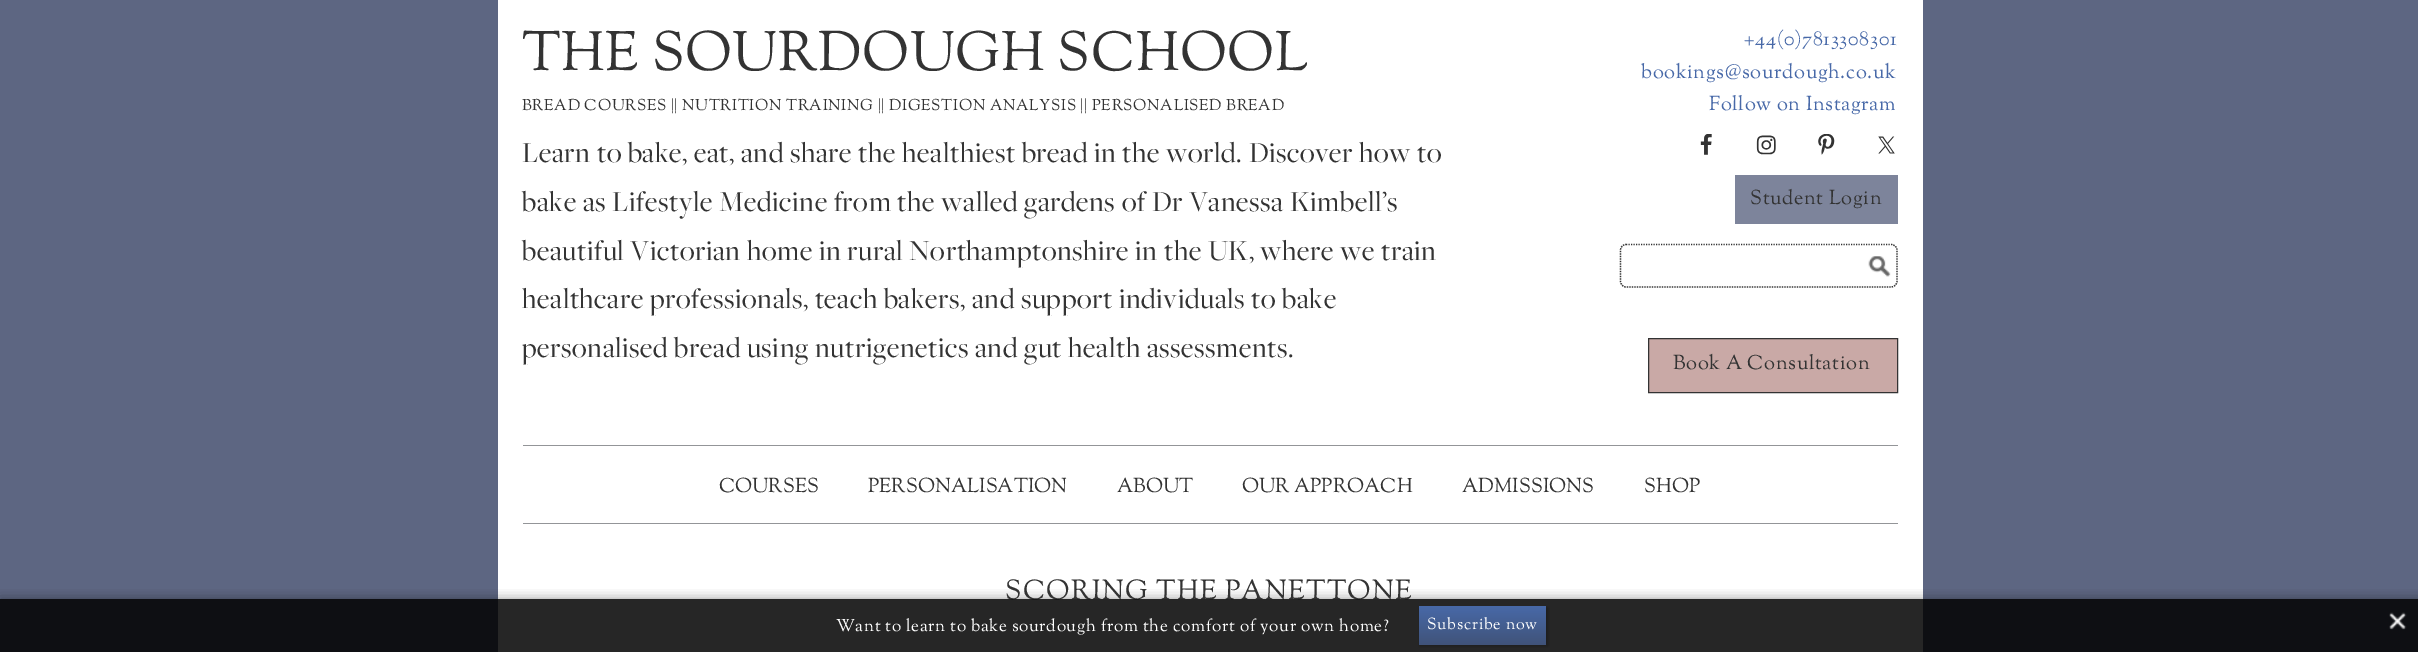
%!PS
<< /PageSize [2418 652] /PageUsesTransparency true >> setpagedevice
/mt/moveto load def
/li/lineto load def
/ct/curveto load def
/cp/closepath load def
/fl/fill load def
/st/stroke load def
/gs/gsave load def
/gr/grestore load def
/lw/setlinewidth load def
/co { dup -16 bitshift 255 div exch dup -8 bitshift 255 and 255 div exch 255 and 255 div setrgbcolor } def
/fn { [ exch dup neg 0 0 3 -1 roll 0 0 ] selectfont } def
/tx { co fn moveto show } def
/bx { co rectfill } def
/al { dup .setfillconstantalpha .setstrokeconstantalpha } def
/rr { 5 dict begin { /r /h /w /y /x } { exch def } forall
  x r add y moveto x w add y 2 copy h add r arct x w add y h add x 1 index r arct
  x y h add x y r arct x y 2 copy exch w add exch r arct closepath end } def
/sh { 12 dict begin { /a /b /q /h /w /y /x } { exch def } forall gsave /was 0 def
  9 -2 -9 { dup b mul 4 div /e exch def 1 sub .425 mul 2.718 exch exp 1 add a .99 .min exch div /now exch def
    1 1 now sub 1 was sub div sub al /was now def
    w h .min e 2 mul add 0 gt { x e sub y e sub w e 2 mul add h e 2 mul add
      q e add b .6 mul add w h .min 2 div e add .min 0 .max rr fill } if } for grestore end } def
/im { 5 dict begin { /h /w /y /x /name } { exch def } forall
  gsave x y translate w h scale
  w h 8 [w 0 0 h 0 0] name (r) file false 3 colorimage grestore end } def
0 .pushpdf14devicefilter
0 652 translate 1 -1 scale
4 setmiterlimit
0 0 2418 652 16#5D6682 bx
498 0 1425 652 16#FFFFFF bx
(media/1.raw) 1700 134 12 21 im
(media/2.raw) 1756 135 20 20 im
(media/3.raw) 1818 134 17 21 im
(media/4.raw) 1878 136 17 18 im
1735 175 163 49 16#7D849B bx
(media/5.raw) 1868 256 23 21 im
16#333333 co
1.2 lw
[1.25 1.25] 0 setdash
1626 244.5 mt 1891 244.5 li 1894.5 244.5 1897 247 1897 250 ct 1897 281 li 1897 284.5 1894.5 287 1891 287 ct 1626 287 li 1623 287 1620.5 284.5 1620.5 281 ct 1620.5 250 li 1620.5 247 1623 244.5 1626 244.5 ct cp st
16#C9A9A6 co
1648.5 338.5 mt 1897.5 338.5 li 1897.5 392.5 li 1648.5 392.5 li cp gs fl gr
16#333333 co
1 lw
[] 0 setdash
st
523 445 1375 1 16#939598 bx
523 523 1375 1 16#939598 bx
gs
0 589 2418 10 rectclip
16#000000 co
0 599 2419 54 0 6 .4 sh
gr
/SortsMillGoudy-Regular 55 fn
16#333333 co
522 70 mt .62 0 (THE SOURDOUGH SCHOOL) ashow
/SortsMillGoudy-Regular 15.6 fn
522 110 mt .62 0 (BREAD COURSES || NUTRITION TRAINING || DIGESTION ANALYSIS || PERSONALISED BREAD) ashow
/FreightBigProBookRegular-Regular 30 fn
522 162 mt .62 0 (Learn to bake, eat, and share the healthiest bread in the world. Discover how to) ashow
522 211 mt .62 0 (bake as Lifestyle Medicine from the walled gardens of Dr Vanessa Kimbell’s) ashow
522 260 mt .62 0 (beautiful Victorian home in rural Northamptonshire in the UK, where we train) ashow
522 308 mt .62 0 (healthcare professionals, teach bakers, and support individuals to bake) ashow
522 357 mt .62 0 (personalised bread using nutrigenetics and gut health assessments.) ashow
/SortsMillGoudy-Regular 20 fn
16#4869A8 co
1744 45 mt .62 0 (+44\(0\)7813308301) ashow
1641 78 mt .62 0 (bookings@sourdough.co.uk) ashow
1709 110 mt .62 0 (Follow on Instagram) ashow
16#333333 co
1750 204 mt .62 0 (Student Login) ashow
1673 369 mt .62 0 (Book A Consultation) ashow
(COURSES) 719 492 /SortsMillGoudy-Regular 20 16#333333 tx
(PERSONALISATION) 868 492 /SortsMillGoudy-Regular 20 16#333333 tx
(ABOUT) 1117 492 /SortsMillGoudy-Regular 20 16#333333 tx
(OUR APPROACH) 1242 492 /SortsMillGoudy-Regular 20 16#333333 tx
(ADMISSIONS) 1462 492 /SortsMillGoudy-Regular 20 16#333333 tx
(SHOP) 1644 492 /SortsMillGoudy-Regular 20 16#333333 tx
/SortsMillGoudy-Regular 27.5 fn
1005 599 mt 1.25 0 (SCORING THE PANETTONE) ashow
0.85 al
0 599 2418 53 16#000000 bx
/SortsMillGoudy-Regular 17 fn
1 al
16#FFFFFF co
836 631 mt .62 0 (Want to learn to bake sourdough from the comfort of your own home?) ashow
16#000000 co
1420 608 128 38 0 2 .28 sh
gs 1419 606 mt 1546 606 li 1546 645 li 1419 645 li cp clip newpath
<< /ShadingType 2 /ColorSpace /DeviceRGB /Coords [1419 606 1419 645] /Extend [true true] /Function << /FunctionType 2 /Domain [0 1] /C0 [.282 .412 .659] /C1 [.251 .325 .475] /N 1 >> >> shfill gr
/SortsMillGoudy-Regular 16 fn
16#FFFFFF co
1427 629 mt .75 0 (Subscribe now) ashow
(media/6.raw) 2389 612 18 18 im
.poppdf14devicefilter showpage
